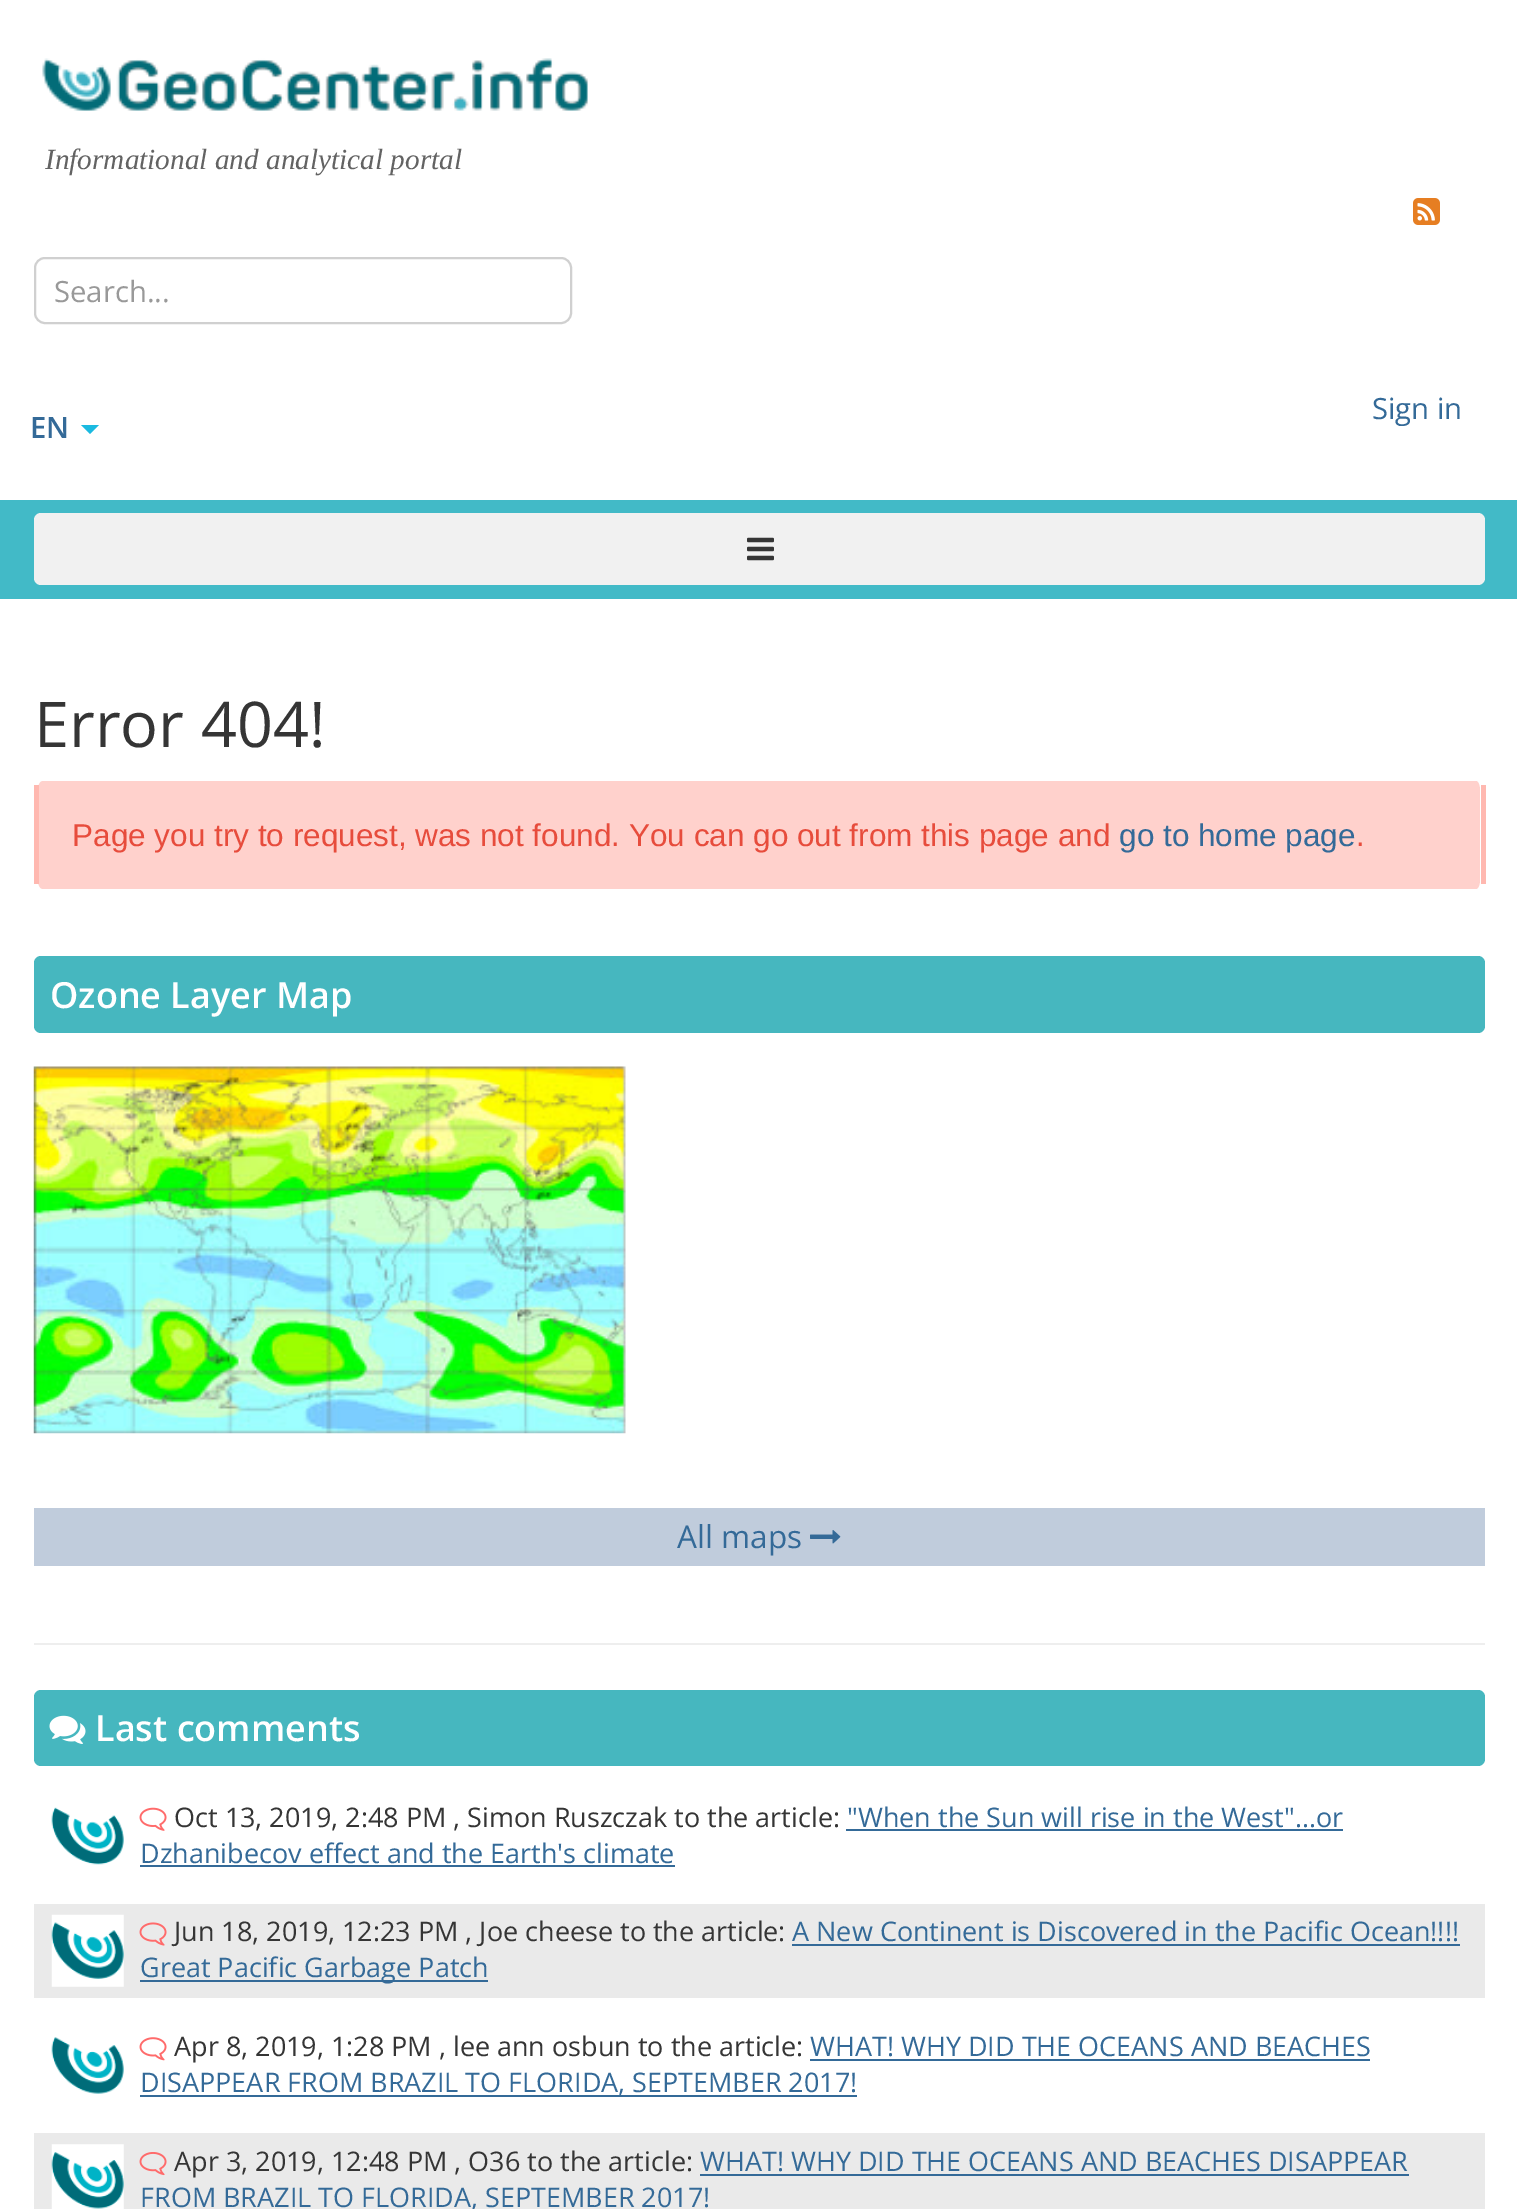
%!PS
<< /PageSize [1517 2209] >> setpagedevice
/mt/moveto load def
/li/lineto load def
/ct/curveto load def
/cp/closepath load def
/fl/fill load def
/st/stroke load def
/lw/setlinewidth load def
/co { dup -16 bitshift 255 div exch dup -8 bitshift 255 and 255 div exch 255 and 255 div setrgbcolor } def
/fn { [ exch dup neg 0 0 3 -1 roll 0 0 ] selectfont } def
/tx { co fn moveto show } def
/bx { co rectfill } def
/rr { 5 dict begin { /r /h /w /y /x } { exch def } forall
  x r add y moveto x w add y 2 copy h add r arct x w add y h add x 1 index r arct
  x y h add x y r arct x y 2 copy exch w add exch r arct closepath end } def
/im { 5 dict begin { /h /w /y /x /name } { exch def } forall
  gsave x y translate w h scale
  w h 8 [w 0 0 h 0 0] name (r) file false 3 colorimage grestore end } def
0 2209 translate 1 -1 scale
4 setmiterlimit
0 0 1517 2209 16#FFFFFF bx
0 500 1517 99 16#42BAC7 bx
(media/1.raw) 42 58 546 53 im
(media/2.raw) 1413 198 27 27 im
16#D0D0D0 co
2 lw
35 258 536 65 10 rr st
16#1BBAE1 co
81 425 mt 99 425 li 90 434 li cp fl
16#F1F1F1 co
34 513 1451 72 7 rr fl
(media/3.raw) 747 537 27 24 im
16#FFD1CC co
43 781 mt 1476 781 li 1478 781 1480 785 1480 790 ct 1480 880 li 1480 885 1478 889 1476 889 ct 43 889 li 40 889 38 885 38 880 ct 38 790 li 38 785 40 781 43 781 ct cp fl
1481 785 5 99 16#FFB8B0 bx
34 785 5 99 16#FFB8B0 bx
34 1643 1451 2 16#EEEEEE bx
16#46B7BF co
34 956 1451 77 7 rr fl
(media/4.raw) 33 1066 593 368 im
34 1508 1451 58 16#C0CCDC bx
(media/5.raw) 810 1530 31 14 im
16#46B7BF co
34 1690 1451 76 7 rr fl
(media/6.raw) 49 1715 37 29 im
(media/7.raw) 51 1807 73 58 im
(media/8.raw) 139 1807 28 24 im
846 1829 497 2 16#346A98 bx
140 1865 535 2 16#346A98 bx
34 1904 1451 94 16#EAEAEA bx
(media/9.raw) 51 1914 73 73 im
(media/10.raw) 139 1922 28 24 im
792 1944 668 2 16#346A98 bx
140 1980 348 2 16#346A98 bx
(media/11.raw) 51 2037 73 57 im
(media/12.raw) 139 2037 28 24 im
810 2059 560 2 16#346A98 bx
140 2095 717 2 16#346A98 bx
34 2133 1451 76 16#EAEAEA bx
(media/13.raw) 51 2144 73 65 im
(media/14.raw) 139 2152 28 24 im
700 2174 709 2 16#346A98 bx
(Informational and analytical portal) 45 169 /LiberationSerif-Italic 29.25 16#636363 tx
(Search...) 54 302 /OpenSans-Regular 29.25 16#999999 tx
(EN) 30 438 /OpenSans-SemiBold 29.25 16#346A98 tx
(Sign in) 1372 419 /OpenSans-Regular 29.25 16#346A98 tx
(Error 404!) 34 747 /OpenSans-Regular 63 16#353535 tx
(Page you try to request, was not found. You can go out from this page and) 72 846 /LiberationSans-Regular 31.5 16#E74C3C tx
(go to home page) 1119 846 /LiberationSans-Regular 31.5 16#346A98 tx
(.) 1356 846 /LiberationSans-Regular 31.5 16#E74C3C tx
(Ozone Layer Map) 50 1008 /OpenSans-SemiBold 36 16#FFFFFF tx
(All maps) 677 1548 /OpenSans-Regular 31.5 16#346A98 tx
(Last comments) 95 1741 /OpenSans-SemiBold 36 16#FFFFFF tx
(Oct 13, 2019, 2:48 PM , Simon Ruszczak to the article:) 174 1827 /OpenSans-Regular 27 16#353535 tx
("When the Sun will rise in the West"...or) 847 1827 /OpenSans-Regular 27 16#346A98 tx
(Dzhanibecov effect and the Earth's climate) 140 1863 /OpenSans-Regular 27 16#346A98 tx
(Jun 18, 2019, 12:23 PM , Joe cheese to the article:) 174 1941 /OpenSans-Regular 27 16#353535 tx
(A New Continent is Discovered in the Pacific Ocean!!!!) 792 1941 /OpenSans-Regular 27 16#346A98 tx
(Great Pacific Garbage Patch) 140 1977 /OpenSans-Regular 27 16#346A98 tx
(Apr 8, 2019, 1:28 PM , lee ann osbun to the article:) 174 2056 /OpenSans-Regular 27 16#353535 tx
(WHAT! WHY DID THE OCEANS AND BEACHES) 810 2056 /OpenSans-Regular 27 16#346A98 tx
(DISAPPEAR FROM BRAZIL TO FLORIDA, SEPTEMBER 2017!) 140 2092 /OpenSans-Regular 27 16#346A98 tx
(Apr 3, 2019, 12:48 PM , O36 to the article:) 174 2171 /OpenSans-Regular 27 16#353535 tx
(WHAT! WHY DID THE OCEANS AND BEACHES DISAPPEAR) 700 2171 /OpenSans-Regular 27 16#346A98 tx
(FROM BRAZIL TO FLORIDA, SEPTEMBER 2017!) 140 2207 /OpenSans-Regular 27 16#346A98 tx
showpage
